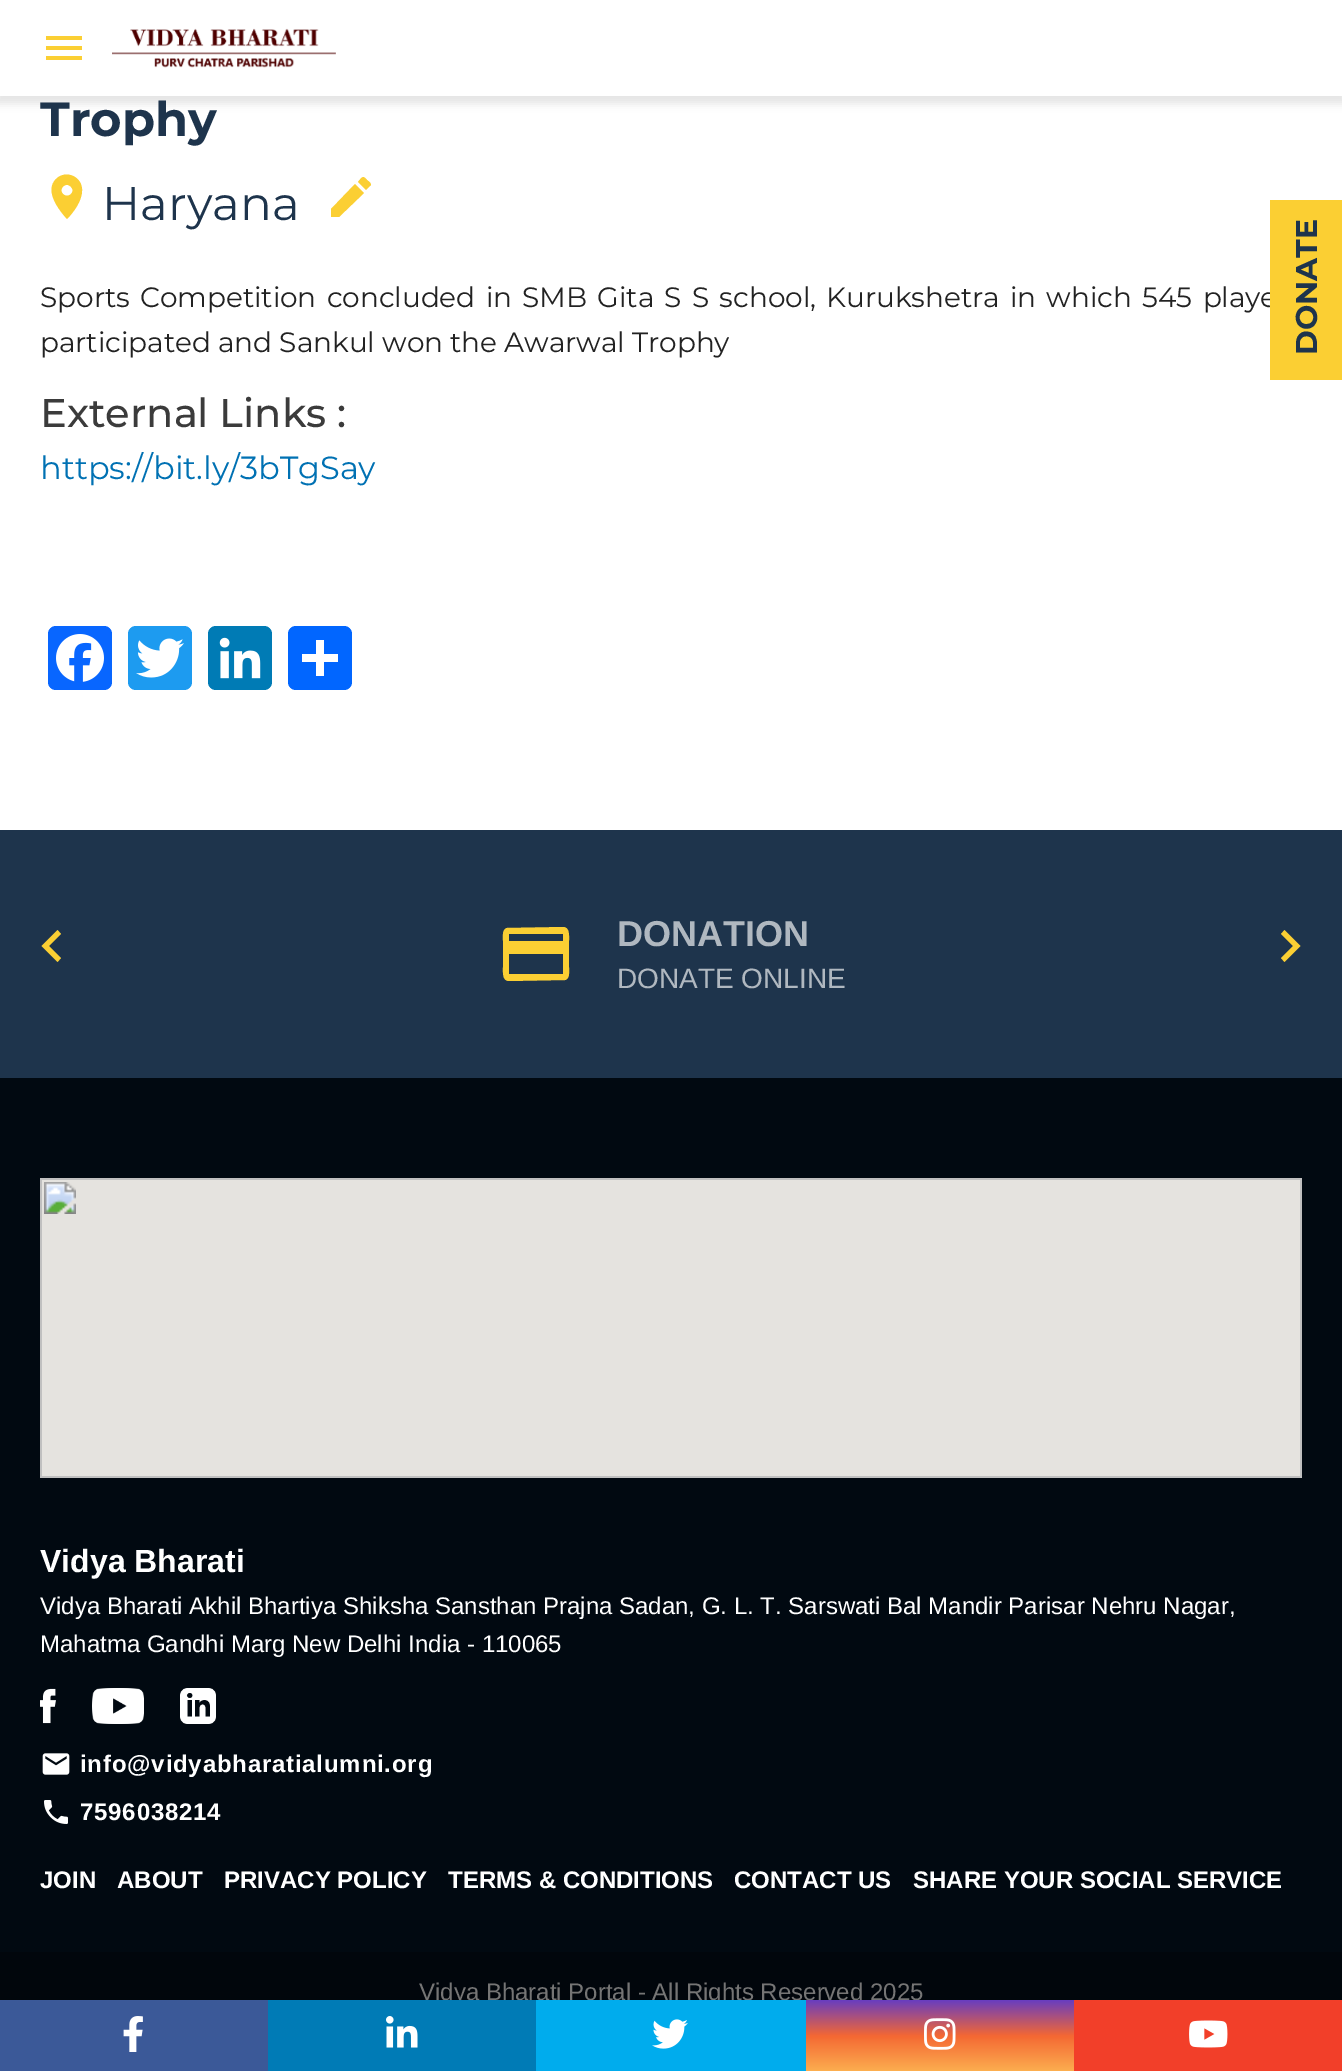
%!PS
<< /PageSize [1342 2071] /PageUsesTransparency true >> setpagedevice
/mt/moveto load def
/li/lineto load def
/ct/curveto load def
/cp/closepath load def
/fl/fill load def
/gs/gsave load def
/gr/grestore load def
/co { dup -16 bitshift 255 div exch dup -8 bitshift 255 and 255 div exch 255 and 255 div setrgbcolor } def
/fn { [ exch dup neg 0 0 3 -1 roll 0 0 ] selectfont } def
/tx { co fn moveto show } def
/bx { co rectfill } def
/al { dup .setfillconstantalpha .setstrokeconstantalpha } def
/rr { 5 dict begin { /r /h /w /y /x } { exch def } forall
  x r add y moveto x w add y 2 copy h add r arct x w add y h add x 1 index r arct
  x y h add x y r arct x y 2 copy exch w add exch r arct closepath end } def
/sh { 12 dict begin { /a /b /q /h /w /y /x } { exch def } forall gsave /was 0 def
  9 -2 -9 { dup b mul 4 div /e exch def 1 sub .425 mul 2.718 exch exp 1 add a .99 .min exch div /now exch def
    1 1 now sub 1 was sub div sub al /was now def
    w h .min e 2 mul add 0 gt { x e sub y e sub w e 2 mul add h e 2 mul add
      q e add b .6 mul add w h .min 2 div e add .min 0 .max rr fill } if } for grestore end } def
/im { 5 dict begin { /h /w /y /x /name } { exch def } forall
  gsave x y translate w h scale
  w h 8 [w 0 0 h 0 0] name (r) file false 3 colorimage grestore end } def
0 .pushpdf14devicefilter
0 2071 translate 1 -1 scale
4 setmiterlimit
0 0 1342 2071 16#FFFFFF bx
16#000000 co
-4 0 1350 104 0 4 .1 sh
0 0 1342 96 16#FFFFFF bx
16#FBCF33 co
46 36 mt 82 36 li 82 40 li 46 40 li cp 46 50 mt 46 46 li 82 46 li 82 50 li cp 46 60 mt 46 56 li 82 56 li 82 60 li cp fl
(media/1.raw) 112 28 224 40 im
63 194 mt 68 199 76 192 71 187 ct 66 181 58 189 63 194 ct cp 56 179 mt 66 169 83 177 82 191 ct 82 201 73 213 67 219 ct 59 210 44 191 56 179 ct cp fl
370 186 mt 366 190 li 358 182 li 362 177 363 175 367 180 ct 368 181 373 184 370 186 ct cp 331 209 mt 355 184 li 364 193 li 339 217 li 331 217 li cp fl
16#0866FF co
48 626 64 64 8 rr fl
(media/2.raw) 56 634 48 48 im
16#1D9BF0 co
128 626 64 64 8 rr fl
(media/3.raw) 136 638 48 40 im
16#007BB5 co
208 626 64 64 8 rr fl
(media/4.raw) 219 637 42 42 im
16#0166FF co
288 626 64 64 8 rr fl
316 640 8 36 16#FFFFFF bx
302 654 36 8 16#FFFFFF bx
0 2000 268 71 16#3B5998 bx
(media/5.raw) 123 2016 20 36 im
1074 2000 268 71 16#F23F29 bx
(media/9.raw) 1189 2020 39 28 im
0 830 1342 248 16#1E344C bx
16#FBCF33 co
563 941 mt 563 934 li 509 934 li 509 941 li cp 563 974 mt 563 954 li 509 954 li 509 974 li cp 563 927 mt 570 927 569 936 569 941 ct 569 967 li 569 972 570 979 565 980 ct 509 981 li 502 981 503 972 503 967 ct 503 941 li 503 936 502 929 507 928 ct cp fl
61 958 mt 57.5 962 li 41.5 946 li 57.5 930 li 61 934 li 49 946 li cp fl
1281 958 mt 1293 946 li 1281 934 li 1284.5 930 li 1300.5 946 li 1284.5 962 li cp fl
0 1078 1342 874 16#010911 bx
(media/10.raw) 40 1178 1262 300 im
(media/11.raw) 40 1688 16 36 im
(media/12.raw) 92 1688 52 36 im
(media/13.raw) 180 1688 36 36 im
(media/14.raw) 42 1753 28 22 im
(media/15.raw) 44 1800 24 24 im
0 1952 1342 48 16#01060C bx
(Trophy) 40 136 /Montserrat-Bold 48 16#1E344C tx
(Haryana) 102 220 /Montserrat-Regular 47 16#1E344C tx
/Montserrat-Regular 28 fn
16#222222 co
40 307 mt 3.1 0 32 -.08 0 (Sports Competition concluded in SMB Gita S S school, Kurukshetra in which 545 playe) awidthshow
40 352 mt -.08 0 (participated and Sankul won the Awarwal Trophy) ashow
(External Links :) 40 427 /Montserrat-Medium 40 16#3B3B3B tx
(https://bit.ly/3bTgSay) 40 479 /Montserrat-Regular 32 16#0071B3 tx
1270 200 72 180 16#FBCF33 bx
/Montserrat-Bold 30 fn
16#1E344C co
gs 1317 355 translate -90 rotate 0 0 mt (DONATE) show gr
(DONATION) 617 946 /LiberationSans-Bold 36 16#B0B8C0 tx
(DONATE ONLINE) 617 988 /LiberationSans-Regular 28 16#B0B8C0 tx
(Vidya Bharati) 40 1572 /LiberationSans-Bold 32 16#FFFFFF tx
(Vidya Bharati Akhil Bhartiya Shiksha Sansthan Prajna Sadan, G. L. T. Sarswati Bal Mandir Parisar Nehru Nagar,) 40 1614 /LiberationSans-Regular 24 16#FFFFFF tx
(Mahatma Gandhi Marg New Delhi India - 110065) 40 1652 /LiberationSans-Regular 24 16#FFFFFF tx
/LiberationSans-Bold 24 fn
80 1772 mt .8 0 (info@vidyabharatialumni.org) ashow
80 1820 mt .8 0 (7596038214) ashow
(JOIN) 40 1888 /LiberationSans-Bold 24 16#FFFFFF tx
(ABOUT) 117 1888 /LiberationSans-Bold 24 16#FFFFFF tx
(PRIVACY POLICY) 224 1888 /LiberationSans-Bold 24 16#FFFFFF tx
(TERMS & CONDITIONS) 448 1888 /LiberationSans-Bold 24 16#FFFFFF tx
(CONTACT US) 734 1888 /LiberationSans-Bold 24 16#FFFFFF tx
(SHARE YOUR SOCIAL SERVICE) 913 1888 /LiberationSans-Bold 24 16#FFFFFF tx
(Vidya Bharati Portal - All Rights Reserved 2025) 419 2000 /LiberationSans-Regular 24 16#757575 tx
gs 806 2000 mt 1074 2000 li 1074 2071 li 806 2071 li cp clip newpath
<< /ShadingType 2 /ColorSpace /DeviceRGB /Coords [940 2000 940 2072] /Extend [true true] /Function << /FunctionType 3 /Domain [0 1] /Functions [<< /FunctionType 2 /Domain [0 1] /C0 [.408 .239 .753] /C1 [.957 .408 .2] /N 1 >> << /FunctionType 2 /Domain [0 1] /C0 [.957 .408 .2] /C1 [.988 .69 .314] /N 1 >>] /Bounds [.5] /Encode [0 1 0 1] >> >> shfill gr
(media/8.raw) 924 2018 32 32 im
536 2000 270 71 16#00ACED bx
(media/7.raw) 652 2019 36 30 im
268 2000 268 71 16#007BB6 bx
(media/6.raw) 386 2016 32 32 im
.poppdf14devicefilter showpage
